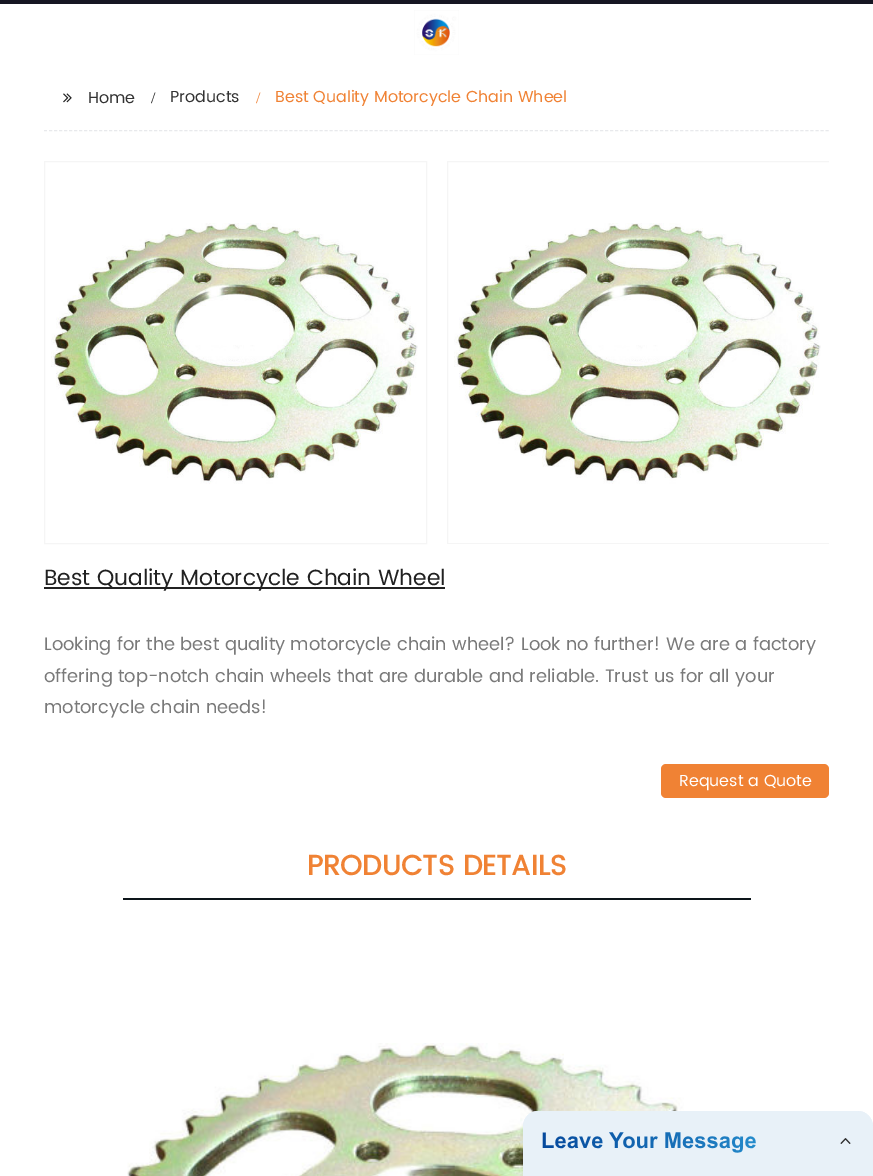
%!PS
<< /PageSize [873 1176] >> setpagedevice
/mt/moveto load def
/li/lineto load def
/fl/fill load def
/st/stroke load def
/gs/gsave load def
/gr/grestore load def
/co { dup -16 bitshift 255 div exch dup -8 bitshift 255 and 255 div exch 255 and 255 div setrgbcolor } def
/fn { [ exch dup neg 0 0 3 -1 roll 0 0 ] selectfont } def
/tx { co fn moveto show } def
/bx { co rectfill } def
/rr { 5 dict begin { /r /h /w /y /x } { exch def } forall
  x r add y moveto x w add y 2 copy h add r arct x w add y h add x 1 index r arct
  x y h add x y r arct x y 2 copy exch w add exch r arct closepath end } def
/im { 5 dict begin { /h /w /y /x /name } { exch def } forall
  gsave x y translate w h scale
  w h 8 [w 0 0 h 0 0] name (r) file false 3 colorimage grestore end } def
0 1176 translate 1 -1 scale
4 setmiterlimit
0 0 873 1176 16#FFFFFF bx
0 0 873 4 16#161622 bx
(media/1.raw) 414 10 45 45 im
16#E8E9EC co
[3 2.01] 0 setdash
44 130.5 mt 829 130.5 li st
(media/2.raw) 63 93 9 10 im
16#F5F5F5 co
[] 0 setdash
44.5 161.5 382 382 rectstroke
(media/3.raw) 51 223 367 261 im
gs
44 161 785 383 rectclip
447.5 161.5 382 382 rectstroke
gr
(media/3.raw) 454 223 367 261 im
44 587 401 2 16#212121 bx
16#F08234 co
661 764 168 34 5 rr fl
123 898 628 2 16#0D151A bx
(media/4.raw) 127 1043 633 133 im
(media/5.raw) 523 1111 350 65 im
(Home) 88 103 /Poppins-Regular 16 16#333333 tx
(/) 151 103 /LiberationSerif-Regular 16 16#212121 tx
(Products) 170 102 /Poppins-Regular 16 16#333333 tx
(/) 256 103 /LiberationSerif-Regular 16 16#F08234 tx
(Best Quality Motorcycle Chain Wheel) 275 102 /Poppins-Regular 16 16#F08234 tx
(Best Quality Motorcycle Chain Wheel) 44 585 /Poppins-Regular 22 16#212121 tx
(Looking for the best quality motorcycle chain wheel? Look no further! We are a factory) 44 650 /Poppins-Regular 18 16#7A7A7A tx
(offering top-notch chain wheels that are durable and reliable. Trust us for all your) 44 682 /Poppins-Regular 18 16#7A7A7A tx
(motorcycle chain needs!) 44 713 /Poppins-Regular 18 16#7A7A7A tx
(Request a Quote) 679 786 /Poppins-Regular 16 16#FFFFFF tx
(PRODUCTS DETAILS) 307 875 /Poppins-Bold 28 16#F08234 tx
showpage
